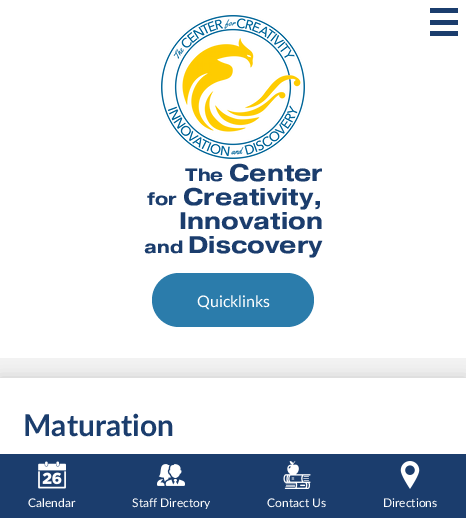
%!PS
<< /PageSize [466 518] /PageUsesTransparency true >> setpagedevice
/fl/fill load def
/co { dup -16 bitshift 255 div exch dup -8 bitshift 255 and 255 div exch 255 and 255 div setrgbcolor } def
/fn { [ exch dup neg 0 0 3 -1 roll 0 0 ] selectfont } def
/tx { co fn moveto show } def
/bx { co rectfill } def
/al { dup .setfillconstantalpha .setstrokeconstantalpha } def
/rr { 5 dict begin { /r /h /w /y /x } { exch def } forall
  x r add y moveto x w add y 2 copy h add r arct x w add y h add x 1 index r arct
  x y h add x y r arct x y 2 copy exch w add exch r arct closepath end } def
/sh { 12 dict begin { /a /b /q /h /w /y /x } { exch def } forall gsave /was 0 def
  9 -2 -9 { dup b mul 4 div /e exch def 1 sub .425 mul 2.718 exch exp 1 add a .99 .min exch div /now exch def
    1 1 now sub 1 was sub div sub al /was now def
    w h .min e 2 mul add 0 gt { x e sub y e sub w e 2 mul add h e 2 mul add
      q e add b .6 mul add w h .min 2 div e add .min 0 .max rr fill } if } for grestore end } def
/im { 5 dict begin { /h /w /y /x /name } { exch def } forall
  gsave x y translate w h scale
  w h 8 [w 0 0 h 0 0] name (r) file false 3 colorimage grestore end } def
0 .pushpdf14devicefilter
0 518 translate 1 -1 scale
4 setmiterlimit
0 0 466 518 16#F2F2F2 bx
16#000000 co
0 378 466 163 0 7.5 .15 sh
0 0 466 358 16#FFFFFF bx
430 8 28 5 16#1B3D6D bx
430 20 28 5 16#1B3D6D bx
430 31 28 5 16#1B3D6D bx
(media/1.raw) 161 15 144 144 im
16#2B7CAB co
152 273 162 54 27 rr fl
0 378 466 76 16#FFFFFF bx
0 454 466 64 16#1B3D6D bx
(media/2.raw) 38 461 28 28 im
(media/3.raw) 157 464 28 22 im
(media/4.raw) 283 461 28 28 im
(media/5.raw) 400 461 20 28 im
(The) 185 181 /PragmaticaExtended-Bold 18 16#1B3D6D tx
(Center) 229 181 /PragmaticaExtended-Bold 24 16#1B3D6D tx
(for) 147 205 /PragmaticaExtended-Bold 18 16#1B3D6D tx
(Creativity,) 183 205 /PragmaticaExtended-Bold 24 16#1B3D6D tx
(Innovation) 179 229 /PragmaticaExtended-Bold 24 16#1B3D6D tx
(and) 144 253 /PragmaticaExtended-Bold 18 16#1B3D6D tx
(Discovery) 188 253 /PragmaticaExtended-Bold 24 16#1B3D6D tx
(Quicklinks) 197 307 /Lato-Regular 16 16#FFFFFF tx
(Maturation) 23 436 /Lato-Bold 30 16#1B3D6D tx
(Calendar) 28 507 /Lato-Regular 12 16#FFFFFF tx
(Staff Directory) 132 507 /Lato-Regular 12 16#FFFFFF tx
(Contact Us) 267 507 /Lato-Regular 12 16#FFFFFF tx
(Directions) 383 507 /Lato-Regular 12 16#FFFFFF tx
.poppdf14devicefilter showpage
